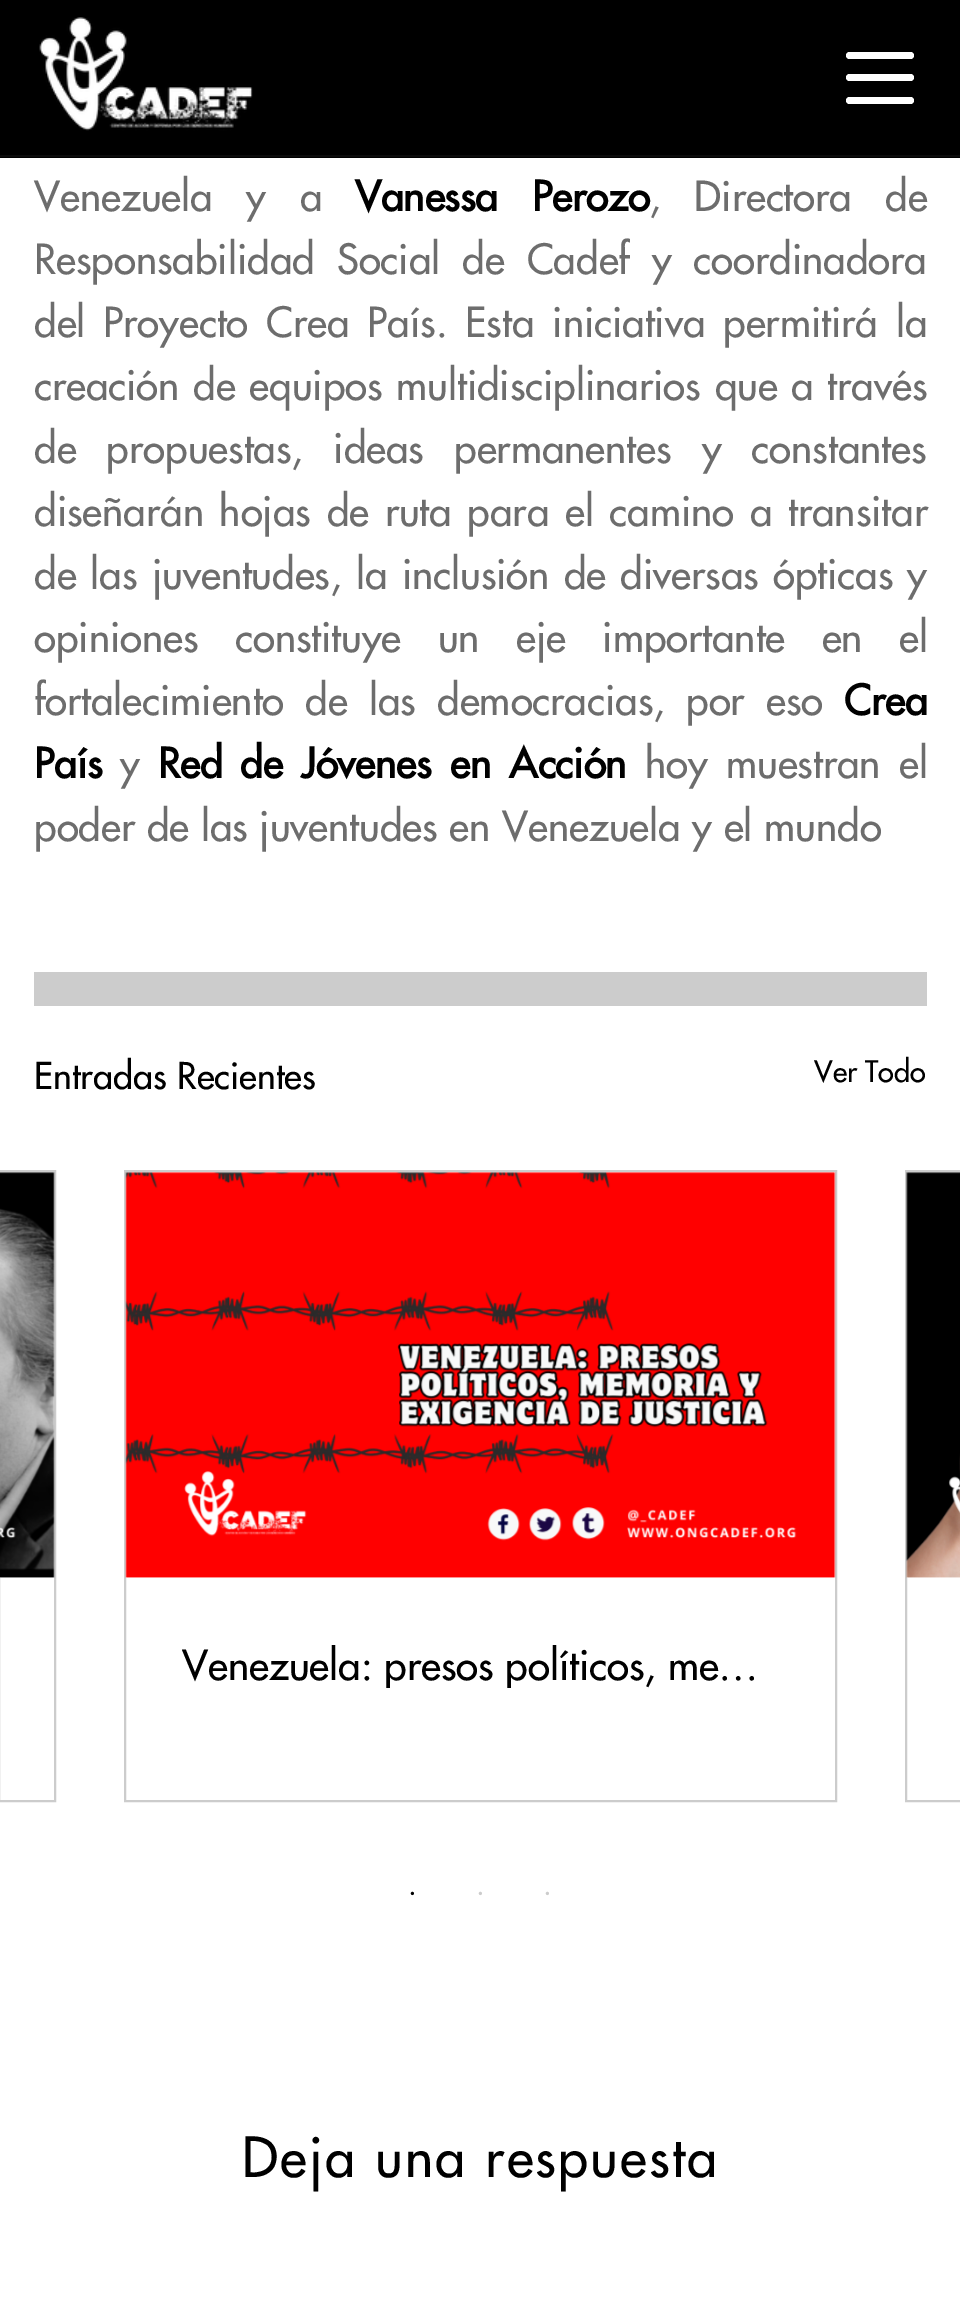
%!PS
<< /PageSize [960 2308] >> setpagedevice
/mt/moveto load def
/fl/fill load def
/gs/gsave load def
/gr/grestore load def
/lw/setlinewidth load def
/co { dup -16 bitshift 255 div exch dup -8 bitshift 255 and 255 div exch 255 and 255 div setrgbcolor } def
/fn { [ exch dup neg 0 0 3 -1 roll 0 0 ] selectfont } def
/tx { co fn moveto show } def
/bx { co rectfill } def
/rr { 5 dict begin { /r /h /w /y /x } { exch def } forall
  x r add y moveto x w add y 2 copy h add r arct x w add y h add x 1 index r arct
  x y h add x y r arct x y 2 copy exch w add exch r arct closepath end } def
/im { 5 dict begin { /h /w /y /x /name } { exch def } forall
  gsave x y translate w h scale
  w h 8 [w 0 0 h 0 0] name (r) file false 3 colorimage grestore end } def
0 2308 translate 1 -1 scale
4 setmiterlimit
0 0 960 2308 16#FFFFFF bx
0 0 960 158 16#000000 bx
0 155 960 2 16#0C0C0C bx
(media/1.raw) 39 17 214 114 im
16#FFFFFF co
846 52 68 7 3.5 rr fl
846 74 68 7 3.5 rr fl
846 97 68 7 3.5 rr fl
34 972 893 34 16#CCCCCC bx
2 lw
-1 1171 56 630 rectstroke
(media/2.raw) 0 1172 55 406 im
125 1171 711 630 rectstroke
(media/3.raw) 125 1172 711 406 im
906 1171 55 630 rectstroke
(media/4.raw) 906 1172 54 406 im
/Futura-Regular 40.5 fn
16#6D6D6D co
34 211 mt 22 0 32 (Venezuela y a) widthshow
/Futura-Bold 40.5 fn
16#000000 co
355 211 mt 22 0 32 (Vanessa Perozo) widthshow
/Futura-Regular 40.5 fn
16#6D6D6D co
649 211 mt 22 0 32 (, Directora de) widthshow
34 274 mt 10.5 0 32 (Responsabilidad Social de Cadef y coordinadora) widthshow
34 337 mt 6.25 0 32 (del Proyecto Crea País. Esta iniciativa permitirá la) widthshow
34 400 mt 2 0 32 (creación de equipos multidisciplinarios que a través) widthshow
34 463 mt 18.5 0 32 (de propuestas, ideas permanentes y constantes) widthshow
34 526 mt 4 0 32 (diseñarán hojas de ruta para el camino a transitar) widthshow
34 589 mt 2.5 0 32 (de las juventudes, la inclusión de diversas ópticas y) widthshow
34 652 mt 24.75 0 32 (opiniones constituye un eje importante en el) widthshow
34 715 mt 9.5 0 32 (fortalecimiento de las democracias, por eso) widthshow
(Crea) 844 715 /Futura-Bold 40.5 16#000000 tx
(País) 34 778 /Futura-Bold 40.5 16#000000 tx
(y) 120 778 /Futura-Regular 40.5 16#6D6D6D tx
/Futura-Bold 40.5 fn
16#000000 co
158 778 mt 6.5 0 32 (Red de Jóvenes en Acción) widthshow
/Futura-Regular 40.5 fn
16#6D6D6D co
645 778 mt 6.5 0 32 (hoy muestran el) widthshow
(poder de las juventudes en Venezuela y el mundo) 34 841 /Futura-Regular 40.5 16#6D6D6D tx
(Entradas Recientes) 34 1089 /Futura-Regular 36 16#000000 tx
(Ver Todo) 814 1082 /Futura-Regular 29 16#000000 tx
gs
182 1645 597 43 rectclip
(Venezuela: presos políticos, me…) 182 1680 /Futura-Regular 40.5 16#000000 tx
gr
(•) 410 1898 /LiberationSerif-Regular 14 16#000000 tx
(•) 478 1898 /LiberationSerif-Regular 14 16#CCCCCC tx
(•) 545 1898 /LiberationSerif-Regular 14 16#CCCCCC tx
/Futura-Regular 54 fn
16#000000 co
242 2177 mt 2.25 0 (Deja una respuesta) ashow
showpage
